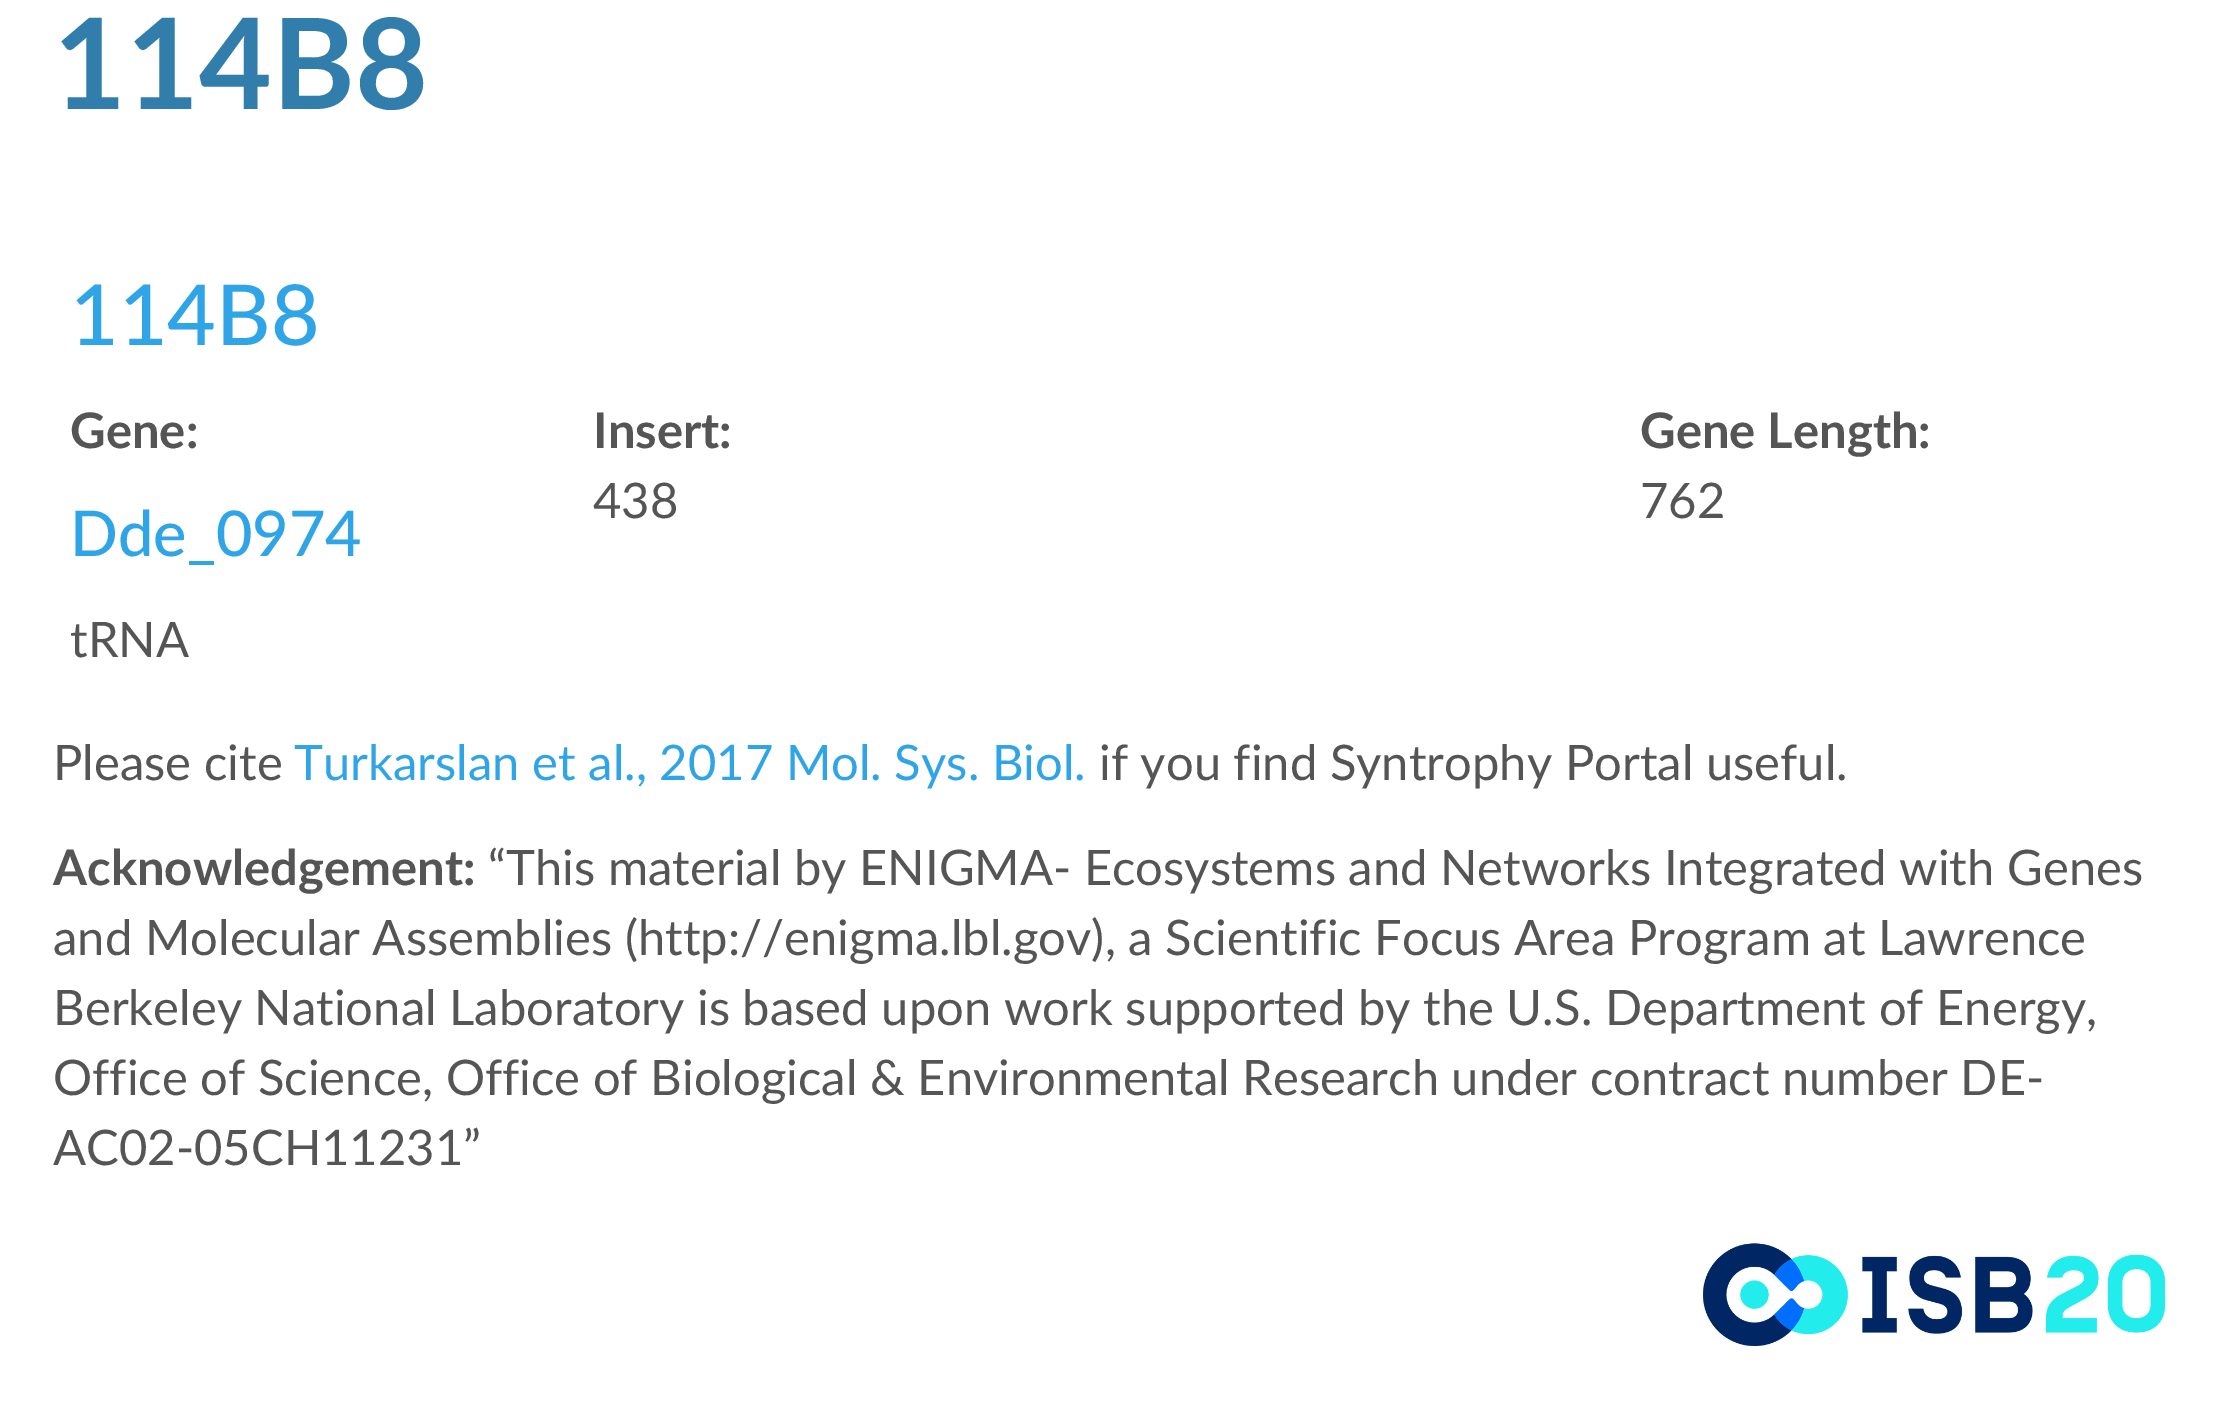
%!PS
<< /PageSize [2231 1425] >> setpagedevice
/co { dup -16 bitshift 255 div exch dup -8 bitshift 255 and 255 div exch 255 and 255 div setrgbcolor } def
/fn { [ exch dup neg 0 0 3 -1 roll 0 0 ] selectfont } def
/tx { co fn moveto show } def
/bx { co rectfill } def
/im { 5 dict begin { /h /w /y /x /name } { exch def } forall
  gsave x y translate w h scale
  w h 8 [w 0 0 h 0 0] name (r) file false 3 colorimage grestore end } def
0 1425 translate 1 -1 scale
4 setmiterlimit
0 0 2231 1425 16#FFFFFF bx
(media/1.raw) 1703 1243 463 103 im
(114B8) 53 109 /Lato-Bold 126 16#317EAC tx
(114B8) 70 345 /Lato-Medium 84 16#2FA4E7 tx
(Gene:) 70 448 /Lato-Bold 49 16#555555 tx
(Dde_0974) 70 556 /Lato-Medium 63 16#2FA4E7 tx
(tRNA) 70 657 /Lato-Regular 49 16#555555 tx
(Insert:) 593 448 /Lato-Bold 49 16#555555 tx
(438) 593 518 /Lato-Regular 49 16#555555 tx
(Gene Length:) 1640 448 /Lato-Bold 49 16#555555 tx
(762) 1640 518 /Lato-Regular 49 16#555555 tx
(Please cite) 53 780 /Lato-Regular 49 16#555555 tx
(Turkarslan et al., 2017 Mol. Sys. Biol.) 294 780 /Lato-Regular 49 16#2FA4E7 tx
(if you find Syntrophy Portal useful.) 1099 780 /Lato-Regular 49 16#555555 tx
(Acknowledgement:) 53 885 /Lato-Bold 49 16#555555 tx
(“This material by ENIGMA- Ecosystems and Networks Integrated with Genes) 488 885 /Lato-Regular 49 16#555555 tx
(and Molecular Assemblies \(http://enigma.lbl.gov\), a Scientific Focus Area Program at Lawrence) 53 955 /Lato-Regular 49 16#555555 tx
(Berkeley National Laboratory is based upon work supported by the U.S. Department of Energy,) 53 1025 /Lato-Regular 49 16#555555 tx
(Office of Science, Office of Biological & Environmental Research under contract number DE-) 53 1095 /Lato-Regular 49 16#555555 tx
(AC02-05CH11231”) 53 1165 /Lato-Regular 49 16#555555 tx
showpage
